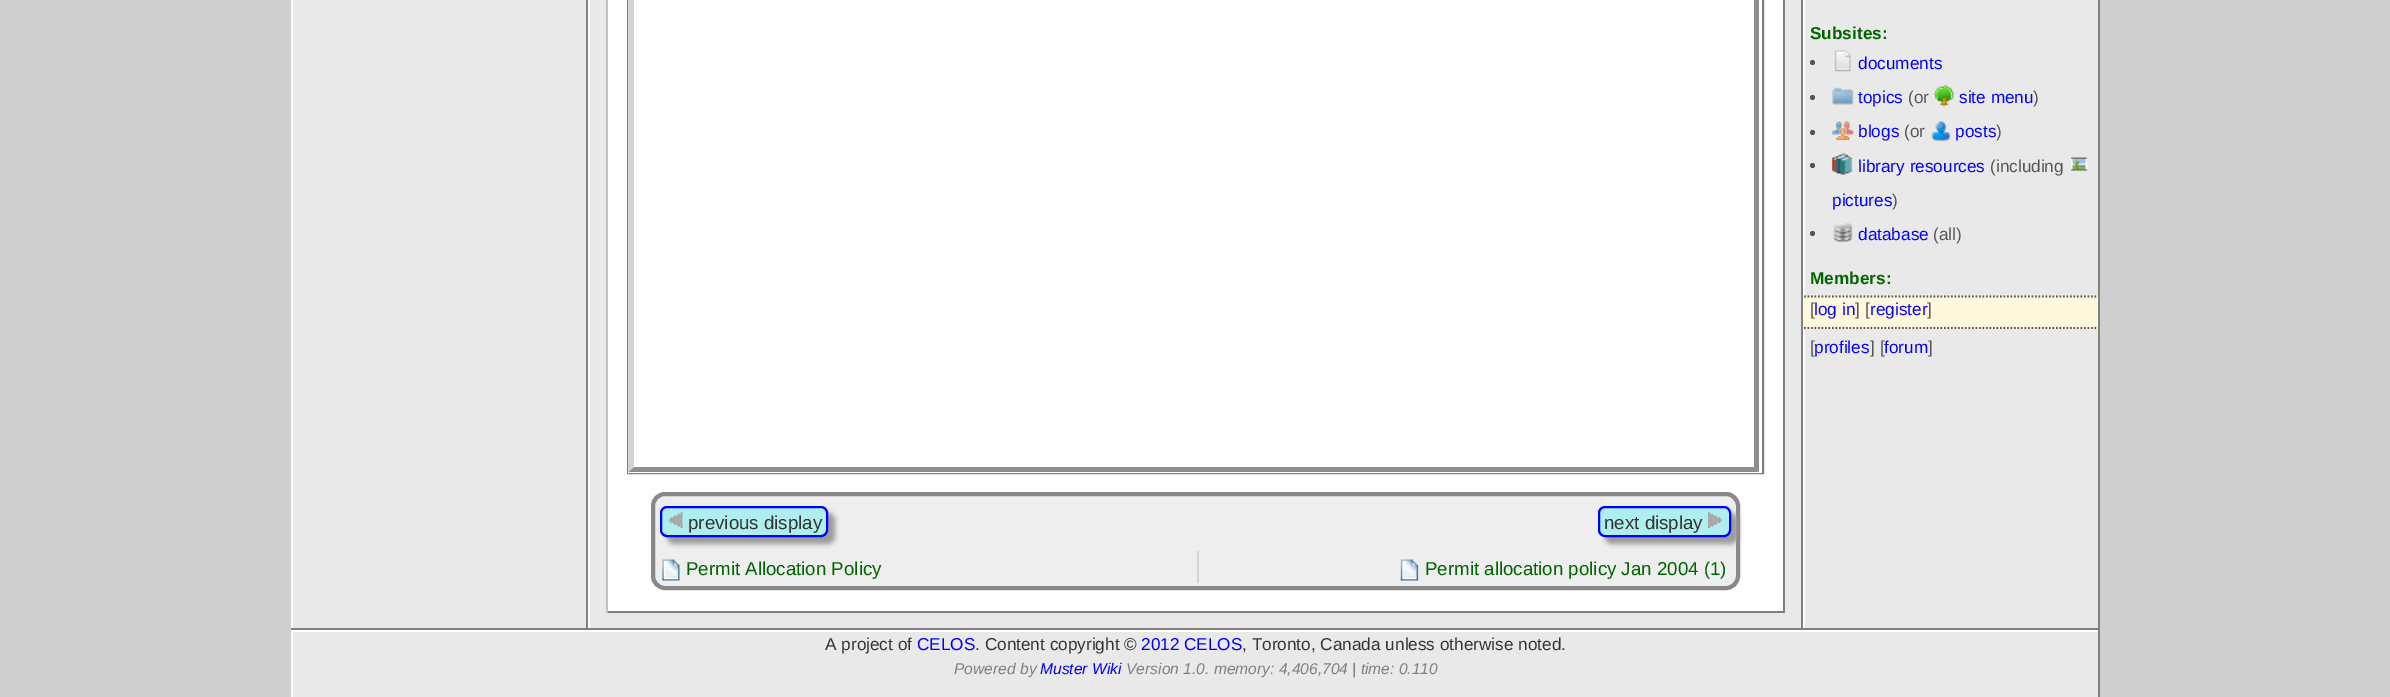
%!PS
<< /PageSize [2390 697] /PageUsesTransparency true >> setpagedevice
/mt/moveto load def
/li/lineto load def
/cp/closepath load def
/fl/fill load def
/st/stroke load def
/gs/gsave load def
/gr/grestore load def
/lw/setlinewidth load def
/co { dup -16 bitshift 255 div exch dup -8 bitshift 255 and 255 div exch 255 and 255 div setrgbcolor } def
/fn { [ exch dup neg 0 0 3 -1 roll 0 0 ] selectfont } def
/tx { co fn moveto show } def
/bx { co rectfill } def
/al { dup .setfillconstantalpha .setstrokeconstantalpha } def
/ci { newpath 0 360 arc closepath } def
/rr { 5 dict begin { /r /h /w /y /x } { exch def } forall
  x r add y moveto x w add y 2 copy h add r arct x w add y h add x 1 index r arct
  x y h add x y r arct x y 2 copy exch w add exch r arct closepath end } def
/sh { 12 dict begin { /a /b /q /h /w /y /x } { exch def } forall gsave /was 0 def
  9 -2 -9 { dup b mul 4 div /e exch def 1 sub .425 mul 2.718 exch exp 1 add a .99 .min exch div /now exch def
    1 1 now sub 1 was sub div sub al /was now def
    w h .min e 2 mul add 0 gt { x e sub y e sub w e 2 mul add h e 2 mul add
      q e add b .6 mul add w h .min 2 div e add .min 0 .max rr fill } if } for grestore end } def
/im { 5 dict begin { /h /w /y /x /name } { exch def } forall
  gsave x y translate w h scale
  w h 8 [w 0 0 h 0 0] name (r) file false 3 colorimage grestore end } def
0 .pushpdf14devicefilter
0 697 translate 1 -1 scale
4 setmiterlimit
0 0 2390 697 16#CFCFCF bx
293 0 1805 628 16#E9E9E9 bx
2098 0 2 628 16#808080 bx
291 0 2 628 16#FFFFFF bx
16#555555 co
1812.5 62.5 2.5 ci fl
(media/1.raw) 1834 50 17 22 im
1812.5 97.5 2.5 ci fl
(media/2.raw) 1832 87 22 18 im
(media/3.raw) 1933 85 21 22 im
1812.5 132.5 2.5 ci fl
(media/4.raw) 1832 121 22 20 im
(media/5.raw) 1931 121 20 21 im
1812.5 165.5 2.5 ci fl
(media/6.raw) 1832 153 21 22 im
(media/7.raw) 2071 157 17 14 im
1812.5 233.5 2.5 ci fl
(media/8.raw) 1833 223 20 20 im
1803 0 2 628 16#FFFFFF bx
1804 296 294 33 16#FFF8DC bx
16#555555 co
1.8 lw
[1.75 1.75] 0 setdash
1804 296.5 mt 2098 296.5 li st
1804 328 mt 2098 328 li st
586 0 2 628 16#808080 bx
1801 0 2 628 16#808080 bx
588 0 2 628 16#FFFFFF bx
608 0 1175 611 16#FFFFFF bx
1783 0 2 613 16#808080 bx
606 611 1179 2 16#808080 bx
606 0 2 613 16#C0C0C0 bx
16#808080 co
2 lw
[] 0 setdash
628 -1 1135 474 rectstroke
628 0 1134 473 16#FFFFFF bx
16#8D8D8D co
1759 -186 mt 1759 472 li 1754 467 li 1754 -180 li cp fl
1759 472 mt 628 472 li 634 467 li 1754 467 li cp fl
16#D3D3D3 co
628 472 mt 628 -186 li 634 -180 li 634 467 li cp fl
16#EEEEEE co
653 494 1085 94 12 rr gs fl gr
16#888888 co
4 lw
st
16#999999 co
667 513 168 31 7 2.5 1 sh
16#AFEEEE co
661 507 166 29 6 rr gs fl gr
16#0000FF co
2 lw
st
(media/9.raw) 668 512 15 16 im
16#999999 co
1605 513 133 31 7 2.5 1 sh
16#AFEEEE co
1599 507 131 29 6 rr gs fl gr
16#0000FF co
st
(media/10.raw) 1708 512 15 16 im
(media/11.raw) 662 559 18 22 im
1197 551 2 32 16#D3D3D3 bx
(media/12.raw) 1400 559 19 22 im
291 628 1809 2 16#808080 bx
293 632 1805 65 16#E9E9E9 bx
291 630 1809 2 16#FFFFFF bx
2098 630 2 67 16#808080 bx
291 630 2 67 16#FFFFFF bx
(Subsites:) 1810 39 /LiberationSans-Bold 17.2 16#006400 tx
(documents) 1858 69 /LiberationSans-Regular 17.2 16#0000FF tx
(topics) 1858 103 /LiberationSans-Regular 17.2 16#0000FF tx
(\(or) 1908 103 /LiberationSans-Regular 17.2 16#555555 tx
(site menu) 1959 103 /LiberationSans-Regular 17.2 16#0000FF tx
(\)) 2033 103 /LiberationSans-Regular 17.2 16#555555 tx
(blogs) 1858 137 /LiberationSans-Regular 17.2 16#0000FF tx
(\(or) 1904 137 /LiberationSans-Regular 17.2 16#555555 tx
(posts) 1955 137 /LiberationSans-Regular 17.2 16#0000FF tx
(\)) 1996 137 /LiberationSans-Regular 17.2 16#555555 tx
(library resources) 1858 172 /LiberationSans-Regular 17.2 16#0000FF tx
(\(including) 1990 172 /LiberationSans-Regular 17.2 16#555555 tx
(pictures) 1832 206 /LiberationSans-Regular 17.2 16#0000FF tx
(\)) 1892 206 /LiberationSans-Regular 17.2 16#555555 tx
(database) 1858 240 /LiberationSans-Regular 17.2 16#0000FF tx
(\(all\)) 1933 240 /LiberationSans-Regular 17.2 16#555555 tx
(Members:) 1810 284 /LiberationSans-Bold 17.2 16#006400 tx
([) 1810 315 /LiberationSans-Regular 17.2 16#555555 tx
(log in) 1814 315 /LiberationSans-Regular 17.2 16#0000FF tx
(] [) 1855 315 /LiberationSans-Regular 17.2 16#555555 tx
(register) 1870 315 /LiberationSans-Regular 17.2 16#0000FF tx
(]) 1927 315 /LiberationSans-Regular 17.2 16#555555 tx
([) 1810 353 /LiberationSans-Regular 17.2 16#555555 tx
(profiles) 1814 353 /LiberationSans-Regular 17.2 16#0000FF tx
(] [) 1870 353 /LiberationSans-Regular 17.2 16#555555 tx
(forum) 1884 353 /LiberationSans-Regular 17.2 16#0000FF tx
(]) 1928 353 /LiberationSans-Regular 17.2 16#555555 tx
(previous display) 688 529 /LiberationSans-Regular 18.7 16#333333 tx
(next display) 1604 529 /LiberationSans-Regular 18.7 16#333333 tx
(Permit Allocation Policy) 686 575 /LiberationSans-Regular 18.7 16#006400 tx
(Permit allocation policy Jan 2004 \(1\)) 1425 575 /LiberationSans-Regular 18.7 16#006400 tx
(A project of) 825 650 /LiberationSans-Regular 17.2 16#333333 tx
(CELOS) 917 650 /LiberationSans-Regular 17.2 16#0000FF tx
(. Content copyright ©) 975 650 /LiberationSans-Regular 17.2 16#333333 tx
(2012 CELOS) 1141 650 /LiberationSans-Regular 17.2 16#0000FF tx
(, Toronto, Canada unless otherwise noted.) 1242 650 /LiberationSans-Regular 17.2 16#333333 tx
(Powered by) 954 674 /LiberationSans-Italic 15.6 16#808080 tx
(Muster Wiki) 1040 674 /LiberationSans-Italic 15.6 16#0000FF tx
(Version 1.0. memory: 4,406,704 | time: 0.110) 1126 674 /LiberationSans-Italic 15.6 16#808080 tx
.poppdf14devicefilter showpage
